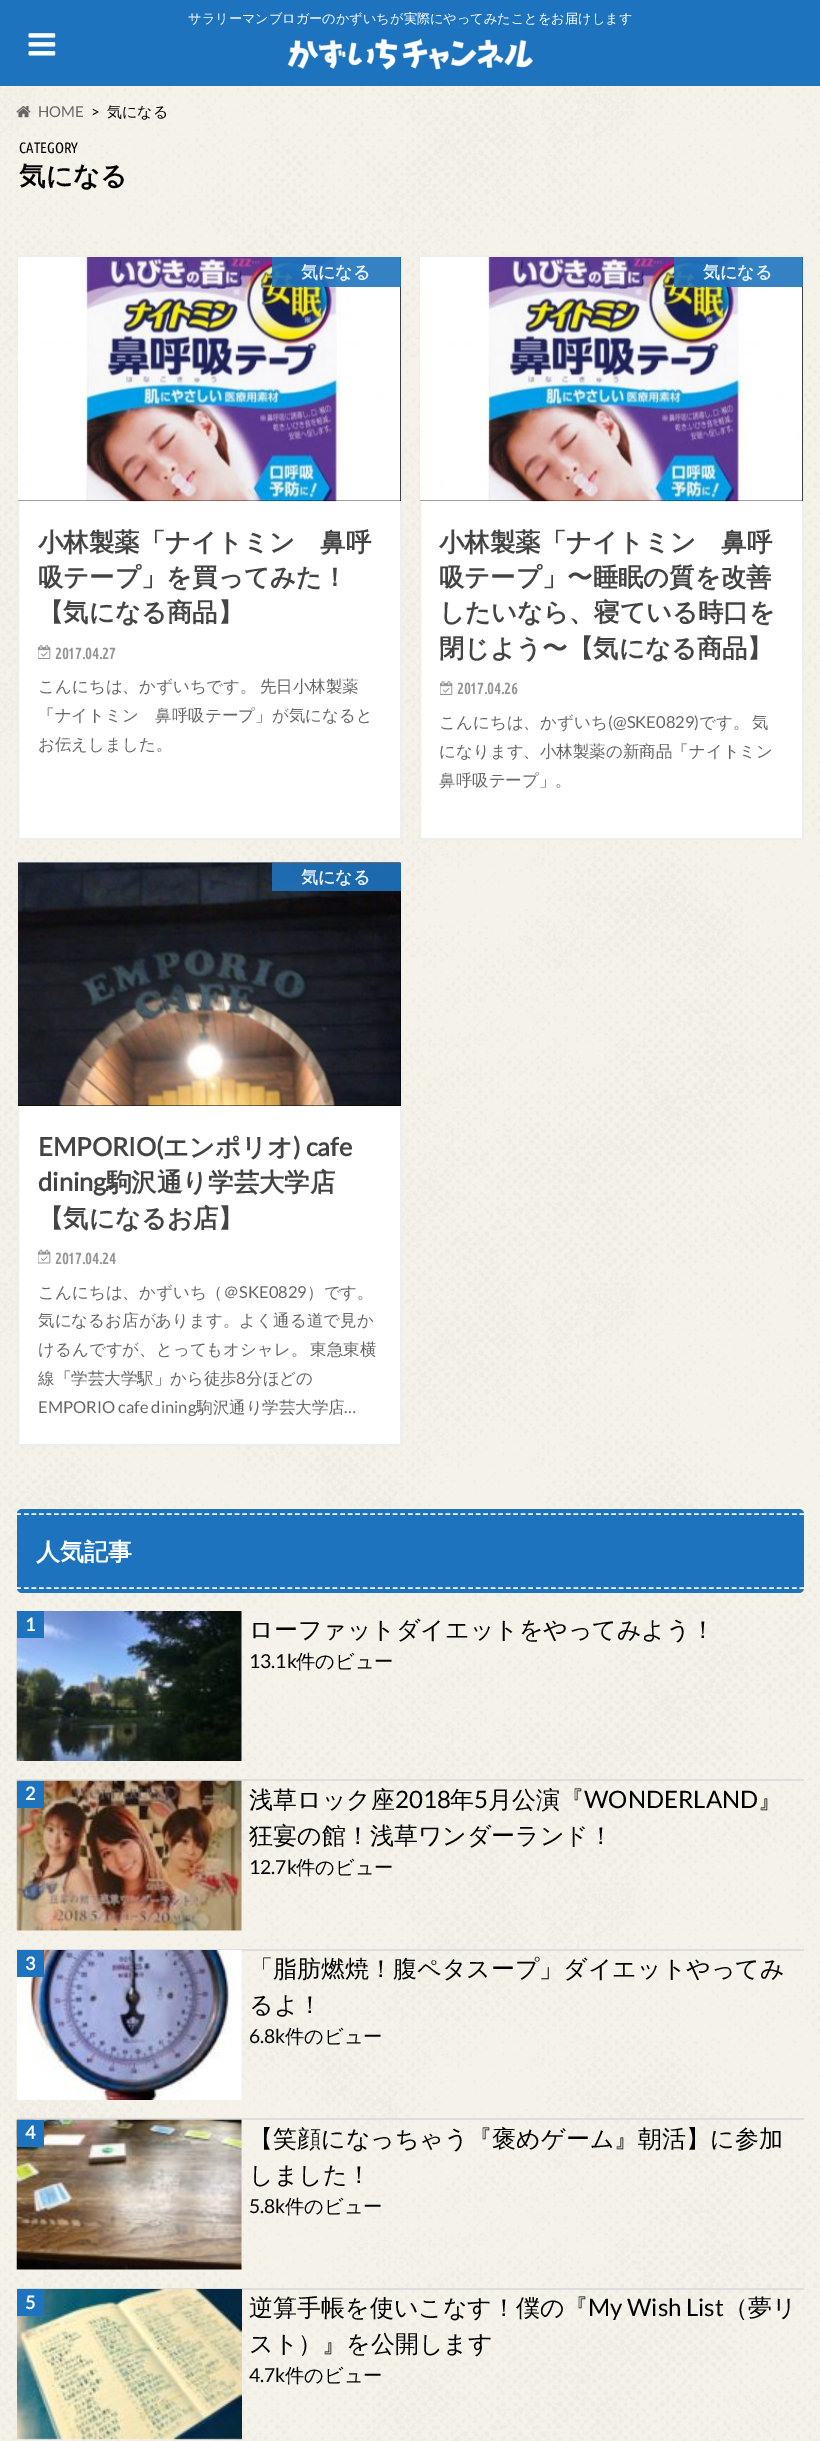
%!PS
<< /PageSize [820 2441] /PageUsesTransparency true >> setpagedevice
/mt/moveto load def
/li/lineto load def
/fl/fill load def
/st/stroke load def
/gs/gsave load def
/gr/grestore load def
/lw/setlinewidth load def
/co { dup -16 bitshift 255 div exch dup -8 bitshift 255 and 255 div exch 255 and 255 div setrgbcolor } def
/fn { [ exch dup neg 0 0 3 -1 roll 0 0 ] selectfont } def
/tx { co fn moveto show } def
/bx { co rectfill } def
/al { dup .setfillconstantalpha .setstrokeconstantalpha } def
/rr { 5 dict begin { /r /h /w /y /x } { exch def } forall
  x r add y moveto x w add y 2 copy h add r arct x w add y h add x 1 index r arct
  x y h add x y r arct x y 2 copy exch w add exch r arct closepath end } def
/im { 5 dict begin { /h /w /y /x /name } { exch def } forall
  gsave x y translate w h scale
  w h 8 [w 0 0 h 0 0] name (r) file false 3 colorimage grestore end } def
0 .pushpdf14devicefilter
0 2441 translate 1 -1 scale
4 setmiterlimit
0 0 820 2441 16#FFFFFF bx
(media/1.raw) 0 86 820 2355 im
0 0 820 86 16#1E73BE bx
(media/2.raw) 28 33 28 23 im
(media/3.raw) 287 38 246 32 im
(media/4.raw) 16 106 15 12 im
19 501 381 337 16#FFFFFF bx
16#EEEEEE co
2 lw
18 256 383 583 rectstroke
18 257 383 244 16#000000 bx
(media/5.raw) 18 257 383 245 im
0.9 al
272 257 129 30 16#1E73BE bx
1 al
(media/6.raw) 38 645 13 14 im
421 501 381 337 16#FFFFFF bx
16#EEEEEE co
420 256 383 583 rectstroke
420 257 383 244 16#000000 bx
(media/7.raw) 420 257 383 245 im
0.9 al
674 257 129 30 16#1E73BE bx
1 al
(media/6.raw) 440 681 13 14 im
19 1106 381 338 16#FFFFFF bx
16#EEEEEE co
18 862 383 583 rectstroke
18 863 383 243 16#000000 bx
(media/8.raw) 18 862 383 244 im
0.9 al
272 863 129 28 16#1E73BE bx
1 al
(media/9.raw) 38 1249 13 15 im
17 1509 787 84 5 rr fl
16#FFFFFF co
1.5 lw
[4.5 3.03] 0 setdash
16.5 1514 mt 804 1514 li st
16.5 1588 mt 804 1588 li st
17 1779 787 2 16#DDDDDD bx
(media/10.raw) 16 1611 226 150 im
17 1611 27 27 16#1E73BE bx
17 1949 787 2 16#DDDDDD bx
(media/11.raw) 16 1780 226 151 im
17 1781 27 27 16#1E73BE bx
17 2118 787 2 16#DDDDDD bx
(media/12.raw) 16 1950 226 150 im
17 1950 27 27 16#1E73BE bx
17 2288 787 2 16#DDDDDD bx
(media/13.raw) 16 2119 226 151 im
17 2120 27 27 16#1E73BE bx
(media/14.raw) 17 2289 225 151 im
17 2289 27 27 16#1E73BE bx
(サラリーマンブロガーのかずいちが実際にやってみたことをお届けします) 188 23 /WenQuanYiZenHei-Medium 13.2 16#FFFFFF tx
(HOME) 38 117 /Lato-Regular 15 16#666666 tx
(>) 91 117 /Lato-Regular 15 16#000000 tx
(気になる) 107 117 /WenQuanYiZenHei-Medium 15 16#000000 tx
(CATEGORY) 19 153 /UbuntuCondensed-Regular 15 16#000000 tx
(気になる) 19 185 /WenQuanYiZenHei-Bold 26.5 16#000000 tx
(気になる) 301 278 /WenQuanYiZenHei-Bold 17 16#EAF2F9 tx
(小林製薬「ナイトミン　鼻呼) 38 551 /WenQuanYiZenHei-Bold 25.4 16#444444 tx
(吸テープ」を買ってみた！) 38 586 /WenQuanYiZenHei-Bold 25.4 16#444444 tx
(【気になる商品】) 38 621 /WenQuanYiZenHei-Bold 25.4 16#444444 tx
(2017.04.27) 55 659 /UbuntuCondensed-Bold 15.5 16#949494 tx
/WenQuanYiZenHei-Medium 16.5 fn
16#666666 co
38 692 mt -2 0 32 (こんにちは、かずいちです。 先日小林製薬) widthshow
(「ナイトミン　鼻呼吸テープ」が気になると) 38 721 /WenQuanYiZenHei-Medium 16.5 16#666666 tx
(お伝えしました。) 38 750 /WenQuanYiZenHei-Medium 16.5 16#666666 tx
(気になる) 703 278 /WenQuanYiZenHei-Bold 17 16#EAF2F9 tx
(小林製薬「ナイトミン　鼻呼) 439 551 /WenQuanYiZenHei-Bold 25.4 16#444444 tx
(吸テープ」〜睡眠の質を改善) 439 586 /WenQuanYiZenHei-Bold 25.4 16#444444 tx
(したいなら、寝ている時口を) 439 621 /WenQuanYiZenHei-Bold 25.4 16#444444 tx
(閉じよう〜【気になる商品】) 439 657 /WenQuanYiZenHei-Bold 25.4 16#444444 tx
(2017.04.26) 457 694 /UbuntuCondensed-Bold 15.5 16#949494 tx
(こんにちは、かずいち) 439 728 /WenQuanYiZenHei-Medium 16.5 16#666666 tx
(\(@SKE0829\)) 608 728 /Lato-Regular 16.5 16#666666 tx
/WenQuanYiZenHei-Medium 16.5 fn
699 728 mt -2 0 32 (です。 気) widthshow
(になります、小林製薬の新商品「ナイトミン) 439 757 /WenQuanYiZenHei-Medium 16.5 16#666666 tx
(鼻呼吸テープ」。) 439 786 /WenQuanYiZenHei-Medium 16.5 16#666666 tx
(気になる) 301 883 /WenQuanYiZenHei-Bold 17 16#EAF2F9 tx
(EMPORIO\() 38 1156 /Lato-Bold 25.4 16#444444 tx
(エンポリオ) 163 1156 /WenQuanYiZenHei-Bold 25.4 16#444444 tx
(\) cafe) 293 1156 /Lato-Bold 25.4 16#444444 tx
(dining) 38 1191 /Lato-Bold 25.4 16#444444 tx
(駒沢通り学芸大学店) 106 1191 /WenQuanYiZenHei-Bold 25.4 16#444444 tx
(【気になるお店】) 38 1227 /WenQuanYiZenHei-Bold 25.4 16#444444 tx
(2017.04.24) 55 1264 /UbuntuCondensed-Bold 15.5 16#949494 tx
(こんにちは、かずいち（＠) 38 1298 /WenQuanYiZenHei-Medium 16.5 16#666666 tx
(SKE0829) 239 1298 /Lato-Regular 16.5 16#666666 tx
(）です。) 307 1298 /WenQuanYiZenHei-Medium 16.5 16#666666 tx
(気になるお店があります。よく通る道で見か) 38 1326 /WenQuanYiZenHei-Medium 16.5 16#666666 tx
38 1355 mt -2 0 32 (けるんですが、とってもオシャレ。 東急東横) widthshow
gs
38 1116 343 311 rectclip
(線「学芸大学駅」から徒歩) 38 1384 /WenQuanYiZenHei-Medium 16.5 16#666666 tx
gr
(8) 236 1384 /Lato-Regular 16.5 16#666666 tx
(分ほどの) 246 1384 /WenQuanYiZenHei-Medium 16.5 16#666666 tx
(EMPORIO cafe dining) 38 1413 /Lato-Regular 16.5 16#666666 tx
(駒沢通り学芸大学店) 196 1413 /WenQuanYiZenHei-Medium 16.5 16#666666 tx
(…) 344 1413 /Lato-Regular 16.5 16#666666 tx
(人気記事) 36 1560 /WenQuanYiZenHei-Bold 24 16#FFFFFF tx
(1) 25 1631 /Lato-Bold 18 16#FFFFFF tx
(ローファットダイエットをやってみよう！) 249 1638 /WenQuanYiZenHei-Medium 24 16#000000 tx
(13.1k) 249 1668 /Lato-Regular 19.25 16#000000 tx
(件のビュー) 296 1668 /WenQuanYiZenHei-Medium 19.25 16#000000 tx
(2) 25 1800 /Lato-Bold 18 16#FFFFFF tx
(浅草ロック座) 249 1808 /WenQuanYiZenHei-Medium 24 16#000000 tx
(2018) 395 1808 /Lato-Regular 24 16#000000 tx
(年) 450 1808 /WenQuanYiZenHei-Medium 24 16#000000 tx
(5) 474 1808 /Lato-Regular 24 16#000000 tx
(月公演『) 488 1808 /WenQuanYiZenHei-Medium 24 16#000000 tx
(WONDERLAND) 584 1808 /Lato-Regular 24 16#000000 tx
(』) 758 1808 /WenQuanYiZenHei-Medium 24 16#000000 tx
(狂宴の館！浅草ワンダーランド！) 249 1844 /WenQuanYiZenHei-Medium 24 16#000000 tx
(12.7k) 249 1874 /Lato-Regular 19.25 16#000000 tx
(件のビュー) 296 1874 /WenQuanYiZenHei-Medium 19.25 16#000000 tx
(3) 25 1970 /Lato-Bold 18 16#FFFFFF tx
(「脂肪燃焼！腹ペタスープ」ダイエットやってみ) 249 1977 /WenQuanYiZenHei-Medium 24 16#000000 tx
(るよ！) 249 2013 /WenQuanYiZenHei-Medium 24 16#000000 tx
(6.8k) 249 2043 /Lato-Regular 19.25 16#000000 tx
(件のビュー) 285 2043 /WenQuanYiZenHei-Medium 19.25 16#000000 tx
(4) 25 2139 /Lato-Bold 18 16#FFFFFF tx
(【笑顔になっちゃう『褒めゲーム』朝活】に参加) 249 2147 /WenQuanYiZenHei-Medium 24 16#000000 tx
(しました！) 249 2183 /WenQuanYiZenHei-Medium 24 16#000000 tx
(5.8k) 249 2213 /Lato-Regular 19.25 16#000000 tx
(件のビュー) 285 2213 /WenQuanYiZenHei-Medium 19.25 16#000000 tx
(5) 25 2309 /Lato-Bold 18 16#FFFFFF tx
(逆算手帳を使いこなす！僕の『) 249 2316 /WenQuanYiZenHei-Medium 24 16#000000 tx
(My Wish List) 588 2316 /Lato-Regular 24 16#000000 tx
(（夢リ) 724 2316 /WenQuanYiZenHei-Medium 24 16#000000 tx
(スト）』を公開します) 249 2352 /WenQuanYiZenHei-Medium 24 16#000000 tx
(4.7k) 249 2382 /Lato-Regular 19.25 16#000000 tx
(件のビュー) 285 2382 /WenQuanYiZenHei-Medium 19.25 16#000000 tx
.poppdf14devicefilter showpage
